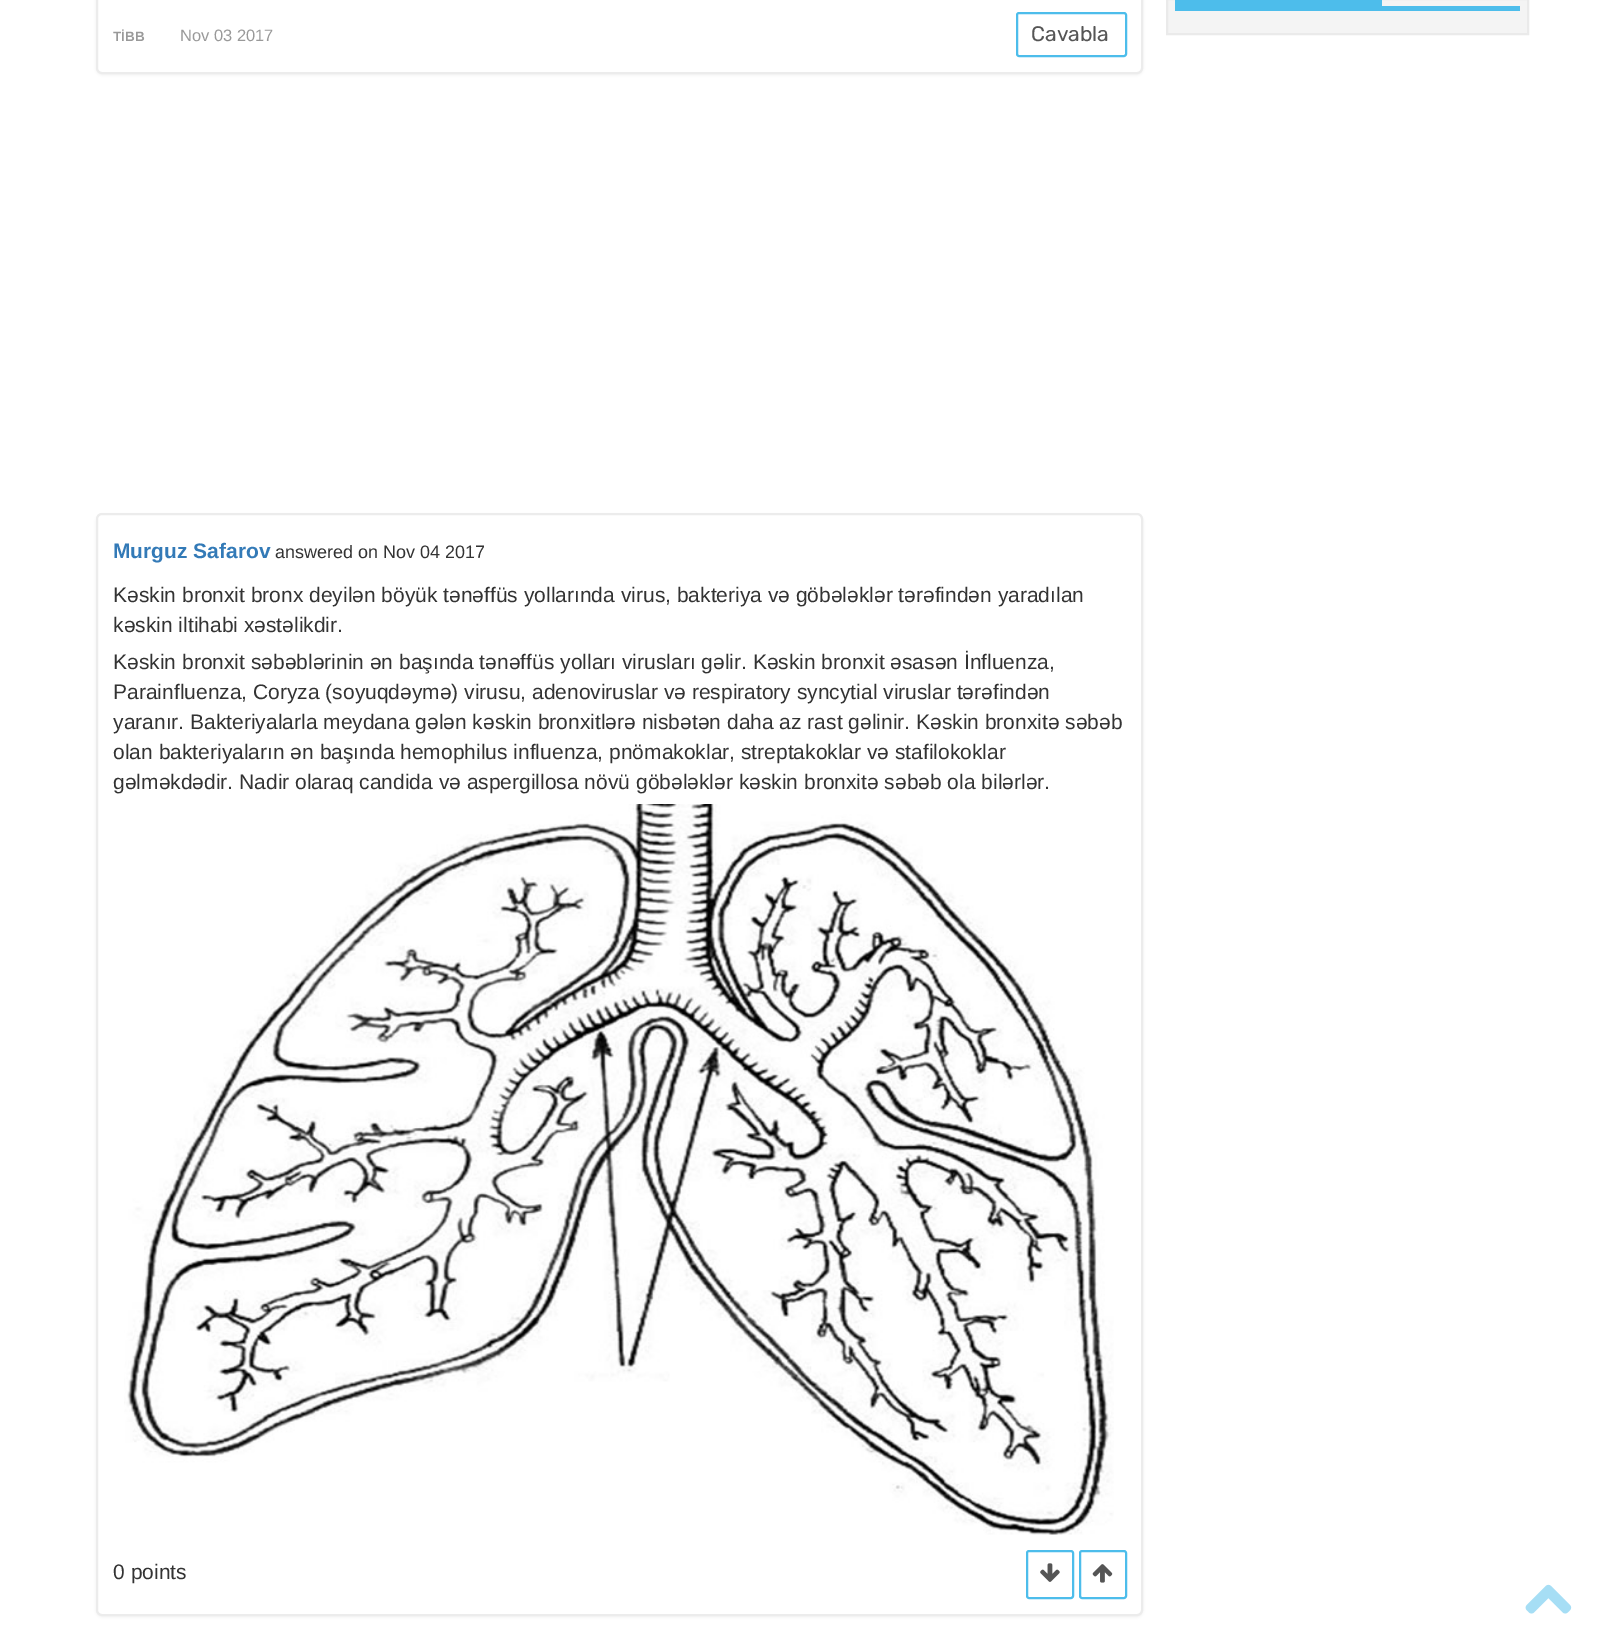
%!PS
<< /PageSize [1601 1651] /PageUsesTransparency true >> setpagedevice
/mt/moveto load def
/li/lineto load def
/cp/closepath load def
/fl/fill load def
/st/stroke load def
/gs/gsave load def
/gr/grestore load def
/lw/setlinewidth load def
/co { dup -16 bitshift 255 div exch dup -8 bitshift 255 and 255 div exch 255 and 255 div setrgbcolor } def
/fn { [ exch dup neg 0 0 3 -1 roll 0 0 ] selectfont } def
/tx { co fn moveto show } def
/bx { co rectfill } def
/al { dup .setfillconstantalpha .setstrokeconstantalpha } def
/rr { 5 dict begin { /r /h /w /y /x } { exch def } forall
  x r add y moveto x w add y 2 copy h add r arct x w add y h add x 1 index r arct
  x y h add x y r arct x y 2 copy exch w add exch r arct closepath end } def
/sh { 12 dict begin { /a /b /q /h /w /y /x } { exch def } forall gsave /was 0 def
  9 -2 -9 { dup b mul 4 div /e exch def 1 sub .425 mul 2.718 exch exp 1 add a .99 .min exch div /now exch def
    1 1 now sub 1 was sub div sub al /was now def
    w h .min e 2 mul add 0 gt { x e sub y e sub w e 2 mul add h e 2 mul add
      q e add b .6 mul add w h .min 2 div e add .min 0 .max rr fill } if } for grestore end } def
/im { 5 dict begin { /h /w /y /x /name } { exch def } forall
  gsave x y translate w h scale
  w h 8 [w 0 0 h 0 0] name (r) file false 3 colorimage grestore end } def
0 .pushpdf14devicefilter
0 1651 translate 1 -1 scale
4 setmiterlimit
0 0 1601 1651 16#FFFFFF bx
16#F4F4F4 co
1167 -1 mt 1528 -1 li 1528 34 li 1167 34 li cp gs fl gr
16#EAEAEA co
2 lw
st
1175 6 345 5 16#4DBDEB bx
1175 0 207 6 16#4DBDEB bx
16#000000 co
96 -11 1047 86 6 1.5 .05 sh
16#FFFFFF co
97 -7 1045 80 5 rr gs fl gr
16#ECECEC co
st
16#4DBDEB co
1017 13 109 43 2 rr st
16#000000 co
96 515 1047 1102 6 1.5 .05 sh
16#FFFFFF co
97 514 1045 1101 5 rr gs fl gr
16#ECECEC co
st
(media/1.raw) 124 804 990 731 im
16#4DBDEB co
1027 1551 46 47 2 rr st
(media/2.raw) 1040 1563 20 19 im
1080 1551 46 47 2 rr st
(media/3.raw) 1092 1564 21 19 im
(media/4.raw) 1525 1584 47 30 im
(TİBB) 113 41 /LiberationSans-Bold 13.5 16#999999 tx
(Nov 03 2017) 180 41 /LiberationSans-Regular 16.5 16#999999 tx
(Cavabla) 1031 41 /Rubik-Light 21 16#555555 tx
(Murguz Safarov) 113 558 /LiberationSans-Bold 21 16#337AB7 tx
(answered on Nov 04 2017) 275 558 /LiberationSans-Regular 18 16#333333 tx
(Kəskin bronxit bronx deyilən böyük tənəffüs yollarında virus, bakteriya və göbələklər tərəfindən yaradılan) 113 602 /LiberationSans-Regular 21 16#333333 tx
(kəskin iltihabi xəstəlikdir.) 113 632 /LiberationSans-Regular 21 16#333333 tx
(Kəskin bronxit səbəblərinin ən başında tənəffüs yolları virusları gəlir. Kəskin bronxit əsasən İnfluenza,) 113 669 /LiberationSans-Regular 21 16#333333 tx
(Parainfluenza, Coryza \(soyuqdəymə\) virusu, adenoviruslar və respiratory syncytial viruslar tərəfindən) 113 699 /LiberationSans-Regular 21 16#333333 tx
(yaranır. Bakteriyalarla meydana gələn kəskin bronxitlərə nisbətən daha az rast gəlinir. Kəskin bronxitə səbəb) 113 729 /LiberationSans-Regular 21 16#333333 tx
(olan bakteriyaların ən başında hemophilus influenza, pnömakoklar, streptakoklar və stafilokoklar) 113 759 /LiberationSans-Regular 21 16#333333 tx
(gəlməkdədir. Nadir olaraq candida və aspergillosa növü göbələklər kəskin bronxitə səbəb ola bilərlər.) 113 789 /LiberationSans-Regular 21 16#333333 tx
(0 points) 113 1579 /LiberationSans-Regular 21 16#333333 tx
.poppdf14devicefilter showpage
